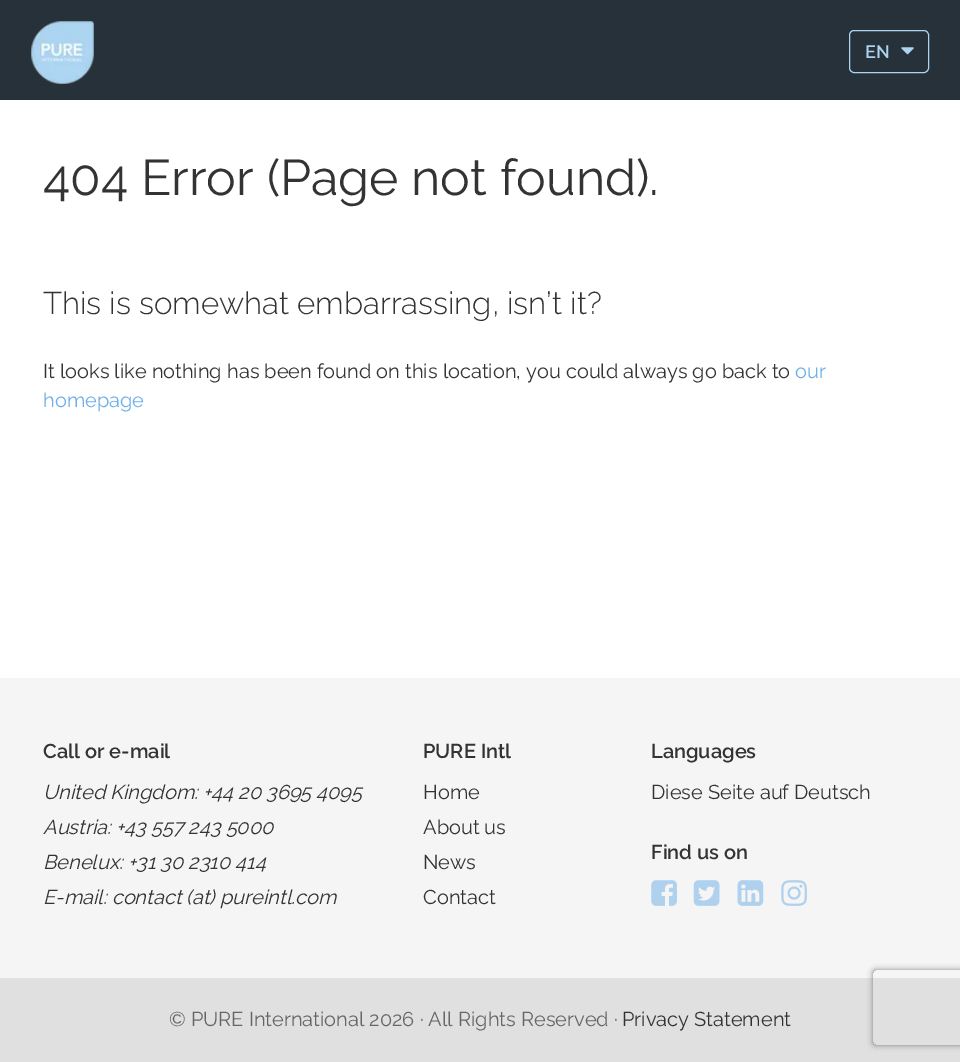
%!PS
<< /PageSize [960 1062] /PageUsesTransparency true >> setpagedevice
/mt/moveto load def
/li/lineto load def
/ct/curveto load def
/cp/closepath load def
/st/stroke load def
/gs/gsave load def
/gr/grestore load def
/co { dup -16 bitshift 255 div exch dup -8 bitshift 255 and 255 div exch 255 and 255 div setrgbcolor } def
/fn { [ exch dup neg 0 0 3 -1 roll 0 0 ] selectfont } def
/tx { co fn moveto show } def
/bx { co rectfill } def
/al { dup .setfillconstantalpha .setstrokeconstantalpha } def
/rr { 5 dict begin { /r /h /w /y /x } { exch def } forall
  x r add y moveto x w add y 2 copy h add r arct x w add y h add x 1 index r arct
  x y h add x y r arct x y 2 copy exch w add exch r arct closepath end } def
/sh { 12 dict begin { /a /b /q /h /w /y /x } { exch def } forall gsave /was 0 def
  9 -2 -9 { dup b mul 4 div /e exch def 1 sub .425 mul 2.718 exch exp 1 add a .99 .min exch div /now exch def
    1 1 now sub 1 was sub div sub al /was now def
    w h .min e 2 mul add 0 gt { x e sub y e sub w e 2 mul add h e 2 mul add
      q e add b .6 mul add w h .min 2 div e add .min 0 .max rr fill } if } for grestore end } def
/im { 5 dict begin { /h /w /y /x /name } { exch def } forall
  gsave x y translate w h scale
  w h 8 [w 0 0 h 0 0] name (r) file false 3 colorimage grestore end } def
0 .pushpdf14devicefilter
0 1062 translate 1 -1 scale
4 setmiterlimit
0 0 960 1062 16#FFFFFF bx
0 0 960 100 16#26313A bx
(media/1.raw) 31 21 63 63 im
(media/2.raw) 901 47 13 8 im
16#ACD4F1 co
849.5 30.5 79 42 4.5 rr st
0 678 960 300 16#F5F5F5 bx
(media/3.raw) 651 880 26 26 im
(media/4.raw) 693 880 27 26 im
(media/5.raw) 737 880 27 26 im
(media/6.raw) 781 880 26 26 im
0 978 960 84 16#E0E0E0 bx
gs
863 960 mt 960 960 li 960 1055 li 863 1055 li cp 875.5 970 mt 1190.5 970 li 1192 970 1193 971 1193 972.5 ct 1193 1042.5 li 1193 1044 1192 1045 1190.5 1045 ct 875.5 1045 li 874 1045 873 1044 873 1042.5 ct 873 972.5 li 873 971 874 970 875.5 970 ct cp eoclip newpath
16#808080 co
873 970 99 75 2.5 3 1 sh
gr
(EN) 865 58 /Raleway-SemiBold 18 16#ACD4F1 tx
(404 Error \(Page not found\).) 43 195 /Raleway-Regular 50 16#333333 tx
(This is somewhat embarrassing, isn’t it?) 43 314 /Raleway-Light 31.25 16#333333 tx
(It looks like nothing has been found on this location, you could always go back to) 43 378 /Raleway-Regular 20 16#333333 tx
(our) 795 378 /Raleway-Regular 20 16#6BAEE8 tx
(homepage) 43 407 /Raleway-Regular 20 16#6BAEE8 tx
(Call or e-mail) 43 758 /Raleway-SemiBold 20 16#333333 tx
(United Kingdom: +44 20 3695 4095) 43 799 /Raleway-Italic 20 16#333333 tx
(Austria: +43 557 243 5000) 43 834 /Raleway-Italic 20 16#333333 tx
(Benelux: +31 30 2310 414) 43 869 /Raleway-Italic 20 16#333333 tx
(E-mail: contact \(at\) pureintl.com) 43 904 /Raleway-Italic 20 16#333333 tx
(PURE Intl) 423 758 /Raleway-SemiBold 20 16#333333 tx
(Home) 423 799 /Raleway-Regular 20 16#333333 tx
(About us) 423 834 /Raleway-Regular 20 16#333333 tx
(News) 423 869 /Raleway-Regular 20 16#333333 tx
(Contact) 423 904 /Raleway-Regular 20 16#333333 tx
(Languages) 651 758 /Raleway-SemiBold 20 16#333333 tx
(Diese Seite auf Deutsch) 651 799 /Raleway-Regular 20 16#333333 tx
(Find us on) 651 859 /Raleway-SemiBold 20 16#333333 tx
(© PURE International 2026 · All Rights Reserved ·) 169 1026 /Raleway-Regular 20 16#666666 tx
(Privacy Statement) 622 1026 /Raleway-Regular 20 16#333333 tx
.poppdf14devicefilter showpage
